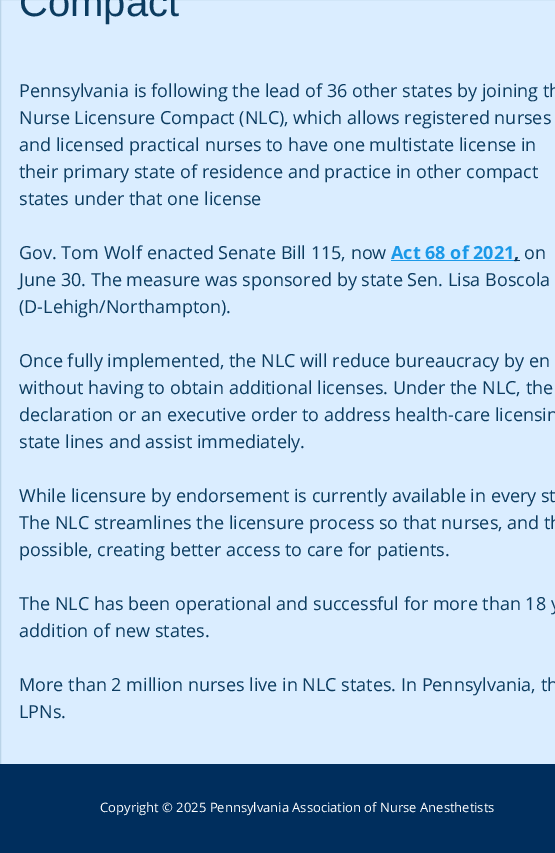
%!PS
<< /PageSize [555 853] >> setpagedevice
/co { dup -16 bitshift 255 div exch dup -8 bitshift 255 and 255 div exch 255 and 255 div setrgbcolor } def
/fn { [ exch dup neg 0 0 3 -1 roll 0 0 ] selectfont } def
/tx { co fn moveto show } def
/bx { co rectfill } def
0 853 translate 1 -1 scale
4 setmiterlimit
0 0 555 853 16#DAEDFF bx
16#BAD4E8 co
.5 -.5 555 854 rectstroke
391 260 123 1 16#1B99E8 bx
514 260 6 1 16#0C3C60 bx
0 764 555 89 16#002E5D bx
(Compact) 19 16 /LiberationSans-Regular 40 16#0C3C60 tx
(Pennsylvania is following the lead of 36 other states by joining th) 19 97 /OpenSans-Regular 18 16#0C3C60 tx
(Nurse Licensure Compact \(NLC\), which allows registered nurses) 19 124 /OpenSans-Regular 18 16#0C3C60 tx
(and licensed practical nurses to have one multistate license in) 19 151 /OpenSans-Regular 18 16#0C3C60 tx
(their primary state of residence and practice in other compact) 19 178 /OpenSans-Regular 18 16#0C3C60 tx
(states under that one license) 19 205 /OpenSans-Regular 18 16#0C3C60 tx
(Gov. Tom Wolf enacted Senate Bill 115, now) 19 259 /OpenSans-Regular 18 16#0C3C60 tx
(Act 68 of 2021) 391 259 /OpenSans-Bold 18 16#1B99E8 tx
(,) 514 259 /OpenSans-Bold 18 16#0C3C60 tx
(on) 524 259 /OpenSans-Regular 18 16#0C3C60 tx
(June 30. The measure was sponsored by state Sen. Lisa Boscola) 19 286 /OpenSans-Regular 18 16#0C3C60 tx
(\(D-Lehigh/Northampton\).) 19 313 /OpenSans-Regular 18 16#0C3C60 tx
(Once fully implemented, the NLC will reduce bureaucracy by en) 19 367 /OpenSans-Regular 18 16#0C3C60 tx
(without having to obtain additional licenses. Under the NLC, the) 19 394 /OpenSans-Regular 18 16#0C3C60 tx
(declaration or an executive order to address health-care licensin) 19 421 /OpenSans-Regular 18 16#0C3C60 tx
(state lines and assist immediately.) 19 448 /OpenSans-Regular 18 16#0C3C60 tx
(While licensure by endorsement is currently available in every st) 19 502 /OpenSans-Regular 18 16#0C3C60 tx
(The NLC streamlines the licensure process so that nurses, and th) 19 529 /OpenSans-Regular 18 16#0C3C60 tx
(possible, creating better access to care for patients.) 19 556 /OpenSans-Regular 18 16#0C3C60 tx
(The NLC has been operational and successful for more than 18 y) 19 610 /OpenSans-Regular 18 16#0C3C60 tx
(addition of new states.) 19 637 /OpenSans-Regular 18 16#0C3C60 tx
(More than 2 million nurses live in NLC states. In Pennsylvania, th) 19 691 /OpenSans-Regular 18 16#0C3C60 tx
(LPNs.) 19 718 /OpenSans-Regular 18 16#0C3C60 tx
(Copyright © 2025 Pennsylvania Association of Nurse Anesthetists) 100 812 /OpenSans-Regular 13 16#FFFFFF tx
showpage
